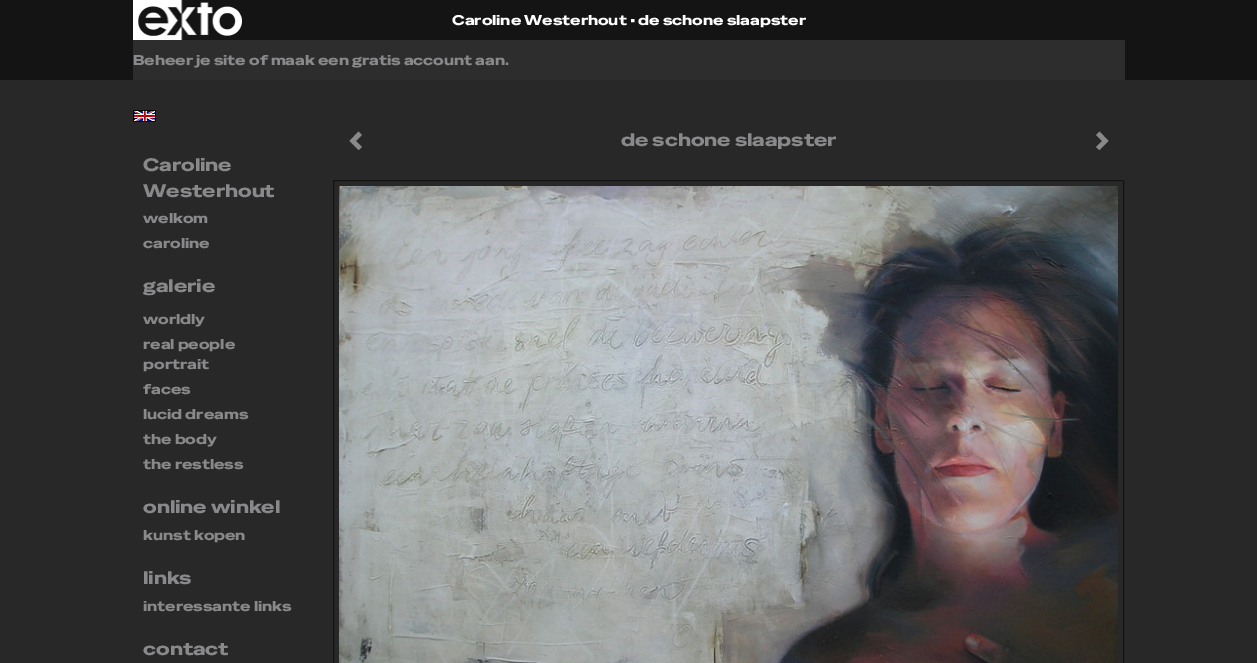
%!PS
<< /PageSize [1257 663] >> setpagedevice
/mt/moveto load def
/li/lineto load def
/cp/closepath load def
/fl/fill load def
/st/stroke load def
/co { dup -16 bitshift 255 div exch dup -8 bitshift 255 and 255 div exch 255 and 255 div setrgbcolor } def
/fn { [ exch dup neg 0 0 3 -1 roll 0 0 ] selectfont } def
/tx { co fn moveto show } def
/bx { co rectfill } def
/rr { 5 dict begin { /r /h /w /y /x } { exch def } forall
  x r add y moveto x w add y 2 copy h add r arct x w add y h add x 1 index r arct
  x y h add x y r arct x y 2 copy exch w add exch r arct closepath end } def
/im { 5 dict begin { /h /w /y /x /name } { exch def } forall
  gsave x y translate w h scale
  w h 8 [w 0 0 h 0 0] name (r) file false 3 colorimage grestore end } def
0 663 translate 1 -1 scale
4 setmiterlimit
0 0 1257 663 16#282828 bx
0 0 1257 80 16#141414 bx
(media/1.raw) 133 0 109 40 im
133 40 992 40 16#2D2D2D bx
16#89898B co
362 135 mt 356 141 li 362 147 li 358.5 150 li 349.5 141 li 358.5 131.5 li cp fl
1108.5 141 mt 1099.5 150 li 1096 147 li 1102 141 li 1096 135 li 1099.5 131.5 li cp fl
16#141414 co
333.5 180.5 790 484 .5 rr st
(media/2.raw) 339 186 779 477 im
(media/3.raw) 133 110 23 12 im
(Caroline Westerhout • de schone slaapster) 452 25 /SpecialGothicExpandedOne-Regular 14 16#FFFFFF tx
(Beheer je site of maak een gratis account aan.) 133 65 /SpecialGothicExpandedOne-Regular 14 16#89898B tx
(de schone slaapster) 621 146 /SpecialGothicExpandedOne-Regular 18 16#89898B tx
(Caroline) 143 171 /SpecialGothicExpandedOne-Regular 18 16#89898B tx
(Westerhout) 143 197 /SpecialGothicExpandedOne-Regular 18 16#89898B tx
(welkom) 143 223 /SpecialGothicExpandedOne-Regular 14 16#89898B tx
(caroline) 143 248 /SpecialGothicExpandedOne-Regular 14 16#89898B tx
(galerie) 143 292 /SpecialGothicExpandedOne-Regular 18 16#89898B tx
(worldly) 143 324 /SpecialGothicExpandedOne-Regular 14 16#89898B tx
(real people) 143 349 /SpecialGothicExpandedOne-Regular 14 16#89898B tx
(portrait) 143 369 /SpecialGothicExpandedOne-Regular 14 16#89898B tx
(faces) 143 394 /SpecialGothicExpandedOne-Regular 14 16#89898B tx
(lucid dreams) 143 419 /SpecialGothicExpandedOne-Regular 14 16#89898B tx
(the body) 143 444 /SpecialGothicExpandedOne-Regular 14 16#89898B tx
(the restless) 143 469 /SpecialGothicExpandedOne-Regular 14 16#89898B tx
(online winkel) 143 513 /SpecialGothicExpandedOne-Regular 18 16#89898B tx
(kunst kopen) 143 540 /SpecialGothicExpandedOne-Regular 14 16#89898B tx
(links) 143 584 /SpecialGothicExpandedOne-Regular 18 16#89898B tx
(interessante links) 143 611 /SpecialGothicExpandedOne-Regular 14 16#89898B tx
(contact) 143 655 /SpecialGothicExpandedOne-Regular 18 16#89898B tx
showpage
